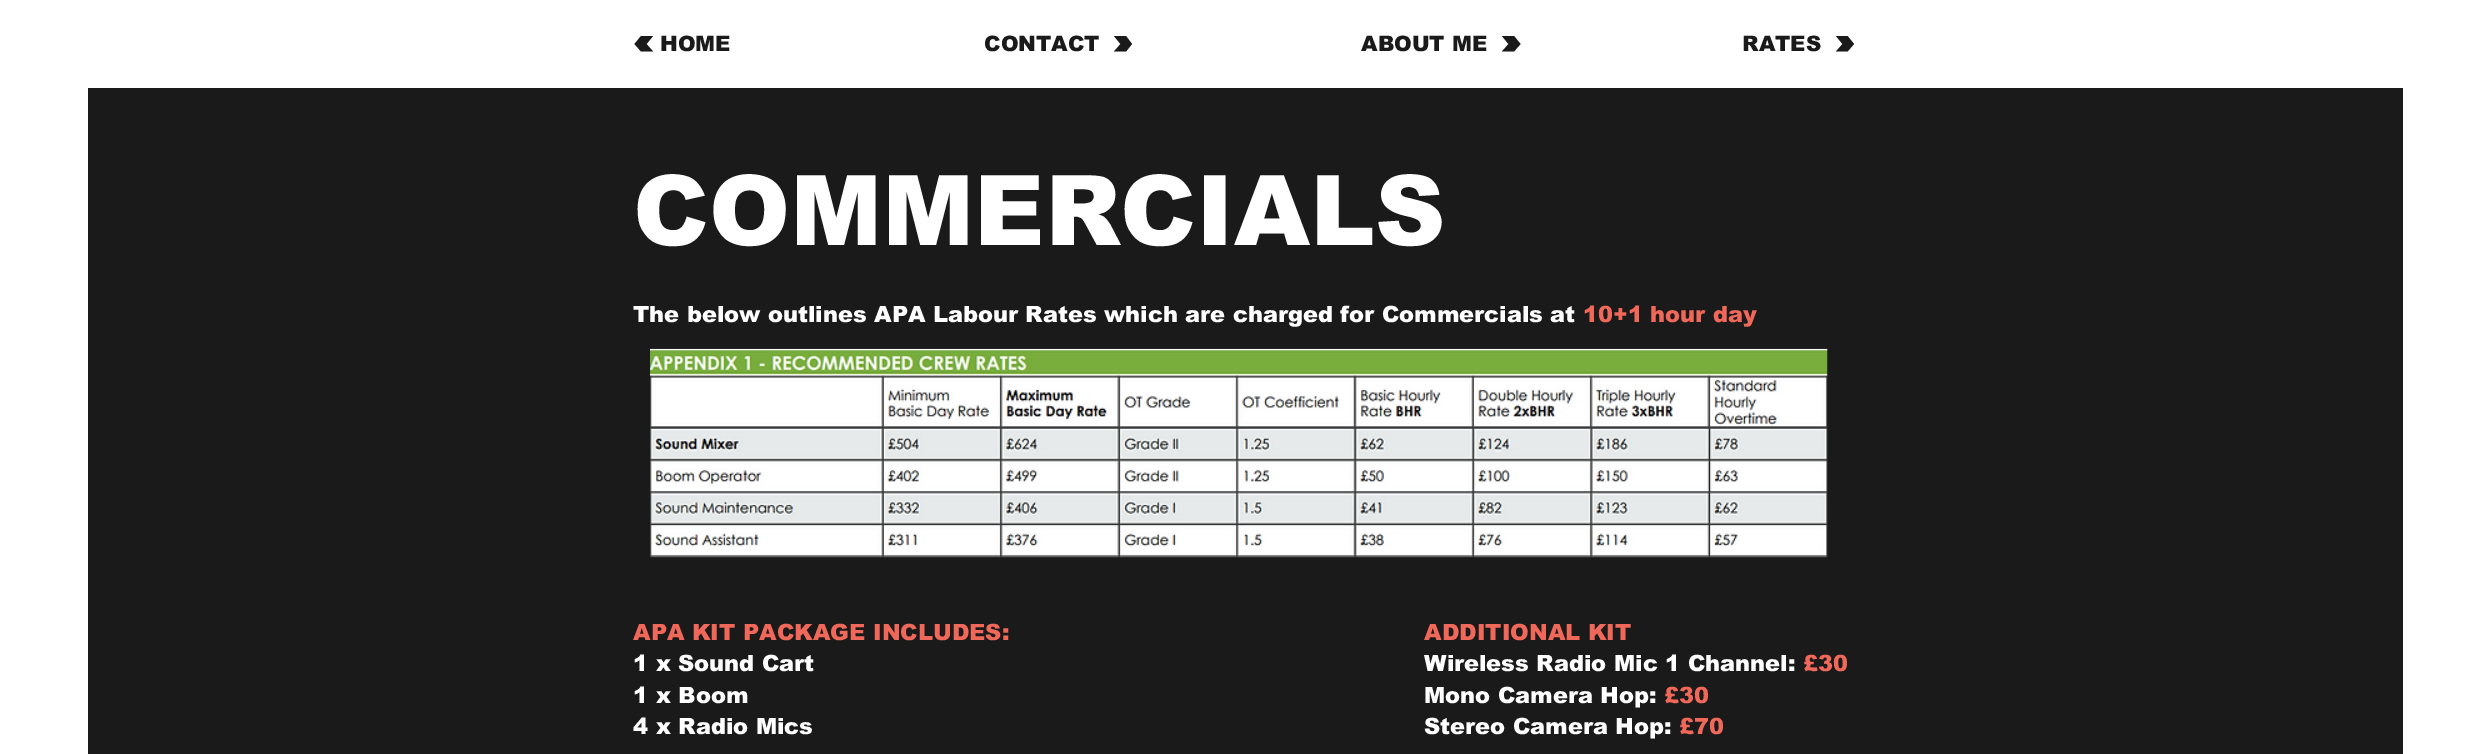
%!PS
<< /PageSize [2490 754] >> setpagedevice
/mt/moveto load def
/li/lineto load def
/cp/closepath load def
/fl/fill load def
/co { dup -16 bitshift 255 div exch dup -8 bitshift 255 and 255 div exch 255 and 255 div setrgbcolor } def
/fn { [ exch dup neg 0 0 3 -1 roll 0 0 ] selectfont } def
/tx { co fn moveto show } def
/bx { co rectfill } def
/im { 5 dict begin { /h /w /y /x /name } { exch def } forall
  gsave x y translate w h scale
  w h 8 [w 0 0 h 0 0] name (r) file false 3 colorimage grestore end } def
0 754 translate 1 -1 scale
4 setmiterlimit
0 0 2490 754 16#FFFFFF bx
16#1A1A1A co
634.5 44 mt 641 51.5 li 653 51.5 li 646.5 44 li 653 36 li 641 36 li cp fl
1132 44 mt 1126 36 li 1114 36 li 1120.5 44 li 1114 51.5 li 1126 51.5 li cp fl
1520.5 44 mt 1514 36 li 1502 36 li 1508.5 44 li 1502 51.5 li 1514 51.5 li cp fl
1854 44 mt 1847.5 36 li 1836 36 li 1842.5 44 li 1836 51.5 li 1847.5 51.5 li cp fl
88 88 2315 666 16#1A1A1A bx
(media/1.raw) 650 348 1178 210 im
(HOME) 660 51 /arial-Black 21.25 16#1A1A1A tx
(CONTACT) 984 51 /arial-Black 21.25 16#1A1A1A tx
(ABOUT ME) 1361 51 /arial-Black 21.25 16#1A1A1A tx
(RATES) 1742 51 /arial-Black 21.25 16#1A1A1A tx
(COMMERCIALS) 633 245 /arial-Black 97.5 16#FFFFFF tx
(The below outlines APA Labour Rates which are charged for Commercials at) 633 322 /arial-Black 22.5 16#FFFFFF tx
(10+1 hour day) 1583 322 /arial-Black 22.5 16#EF6859 tx
(APA KIT PACKAGE INCLUDES:) 633 640 /arial-Black 22.5 16#EF6859 tx
(1 x Sound Cart) 633 671 /arial-Black 22.5 16#FFFFFF tx
(1 x Boom) 633 703 /arial-Black 22.5 16#FFFFFF tx
(4 x Radio Mics) 633 734 /arial-Black 22.5 16#FFFFFF tx
(ADDITIONAL KIT) 1424 640 /arial-Black 22.5 16#EF6859 tx
(Wireless Radio Mic 1 Channel:) 1424 671 /arial-Black 22.5 16#FFFFFF tx
(£30) 1803 671 /arial-Black 22.5 16#EF6859 tx
(Mono Camera Hop:) 1424 703 /arial-Black 22.5 16#FFFFFF tx
(£30) 1664 703 /arial-Black 22.5 16#EF6859 tx
(Stereo Camera Hop:) 1424 734 /arial-Black 22.5 16#FFFFFF tx
(£70) 1679 734 /arial-Black 22.5 16#EF6859 tx
showpage
